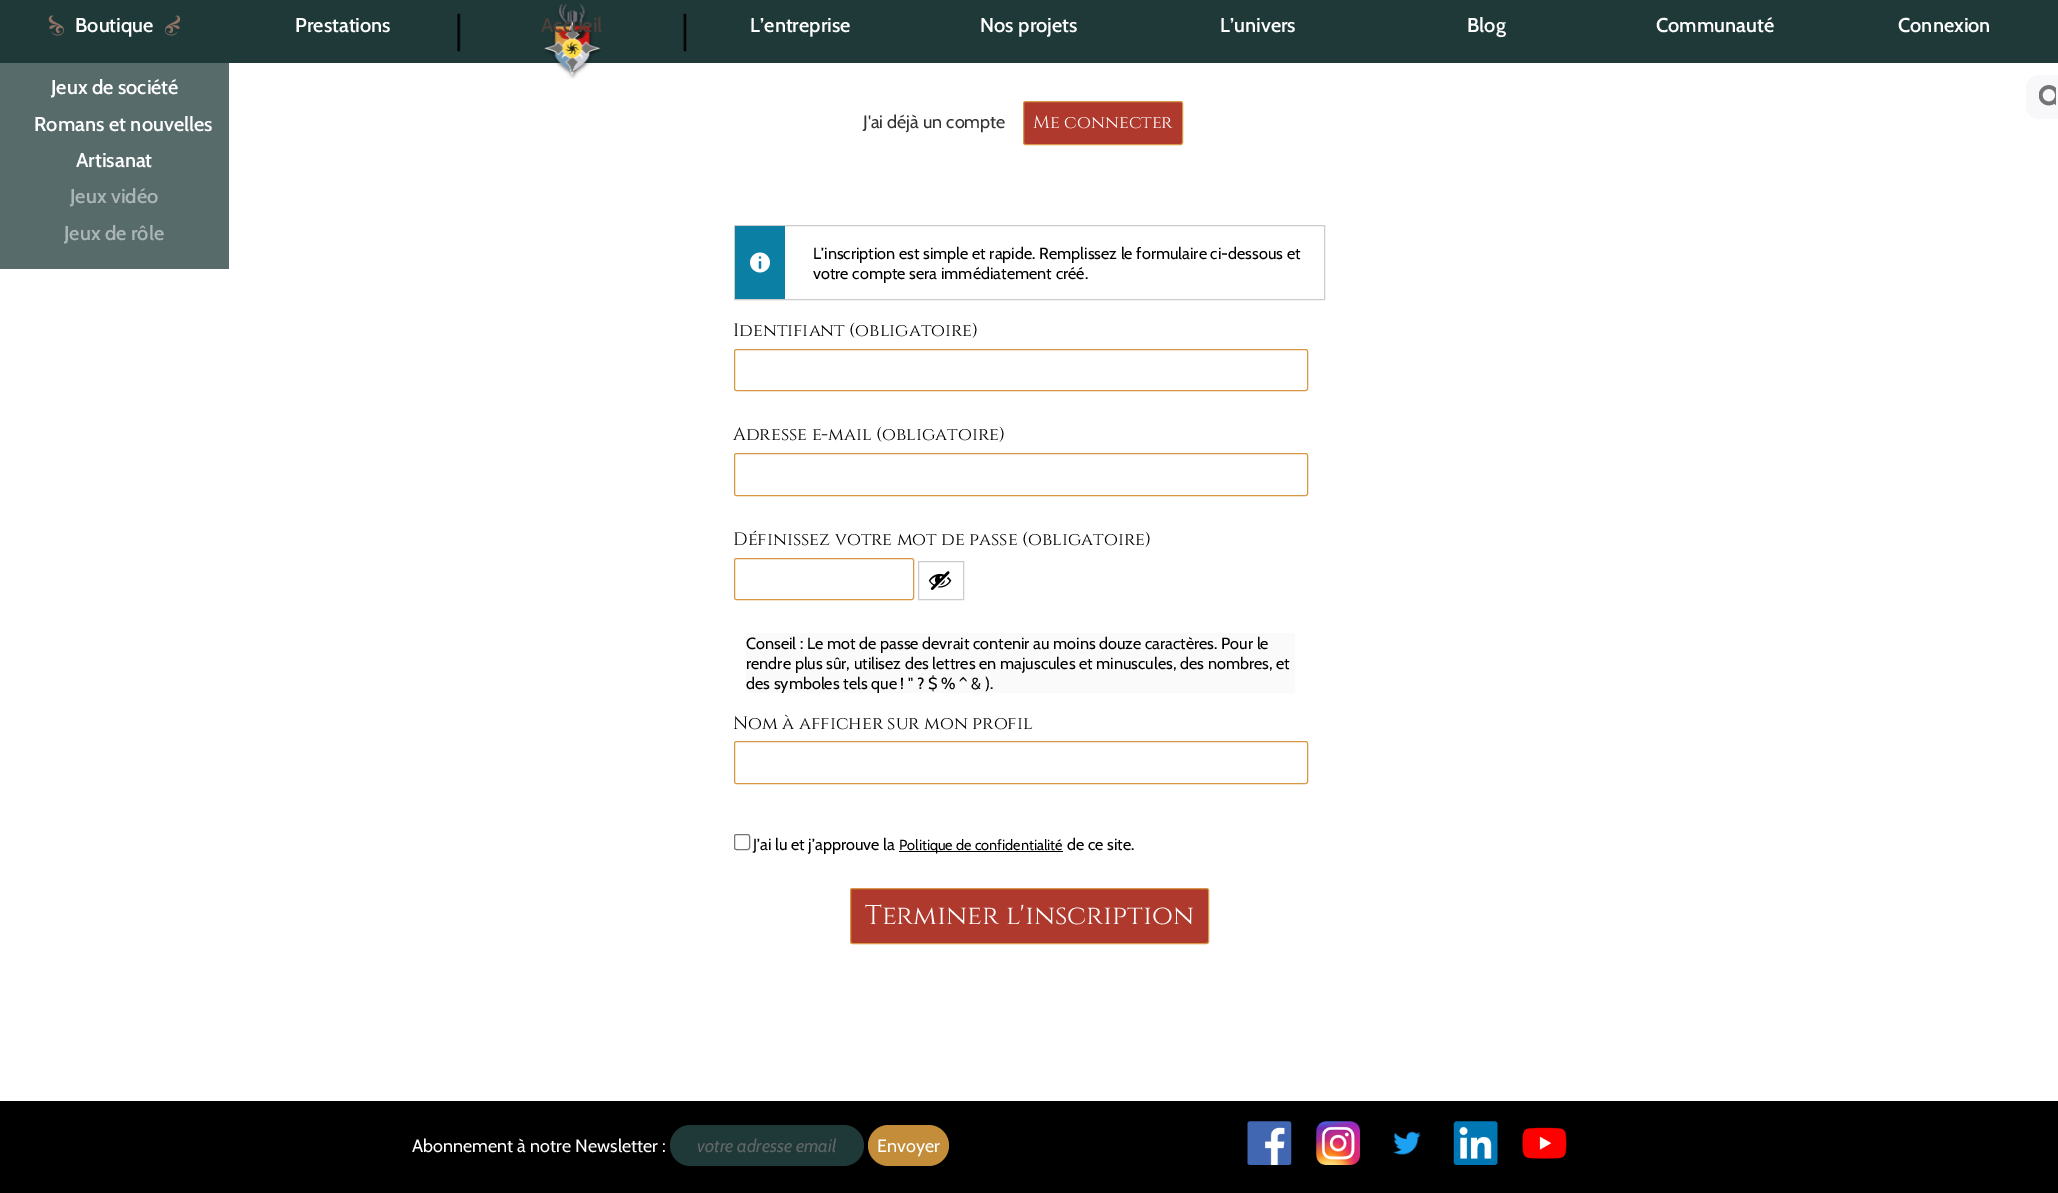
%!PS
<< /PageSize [2058 1193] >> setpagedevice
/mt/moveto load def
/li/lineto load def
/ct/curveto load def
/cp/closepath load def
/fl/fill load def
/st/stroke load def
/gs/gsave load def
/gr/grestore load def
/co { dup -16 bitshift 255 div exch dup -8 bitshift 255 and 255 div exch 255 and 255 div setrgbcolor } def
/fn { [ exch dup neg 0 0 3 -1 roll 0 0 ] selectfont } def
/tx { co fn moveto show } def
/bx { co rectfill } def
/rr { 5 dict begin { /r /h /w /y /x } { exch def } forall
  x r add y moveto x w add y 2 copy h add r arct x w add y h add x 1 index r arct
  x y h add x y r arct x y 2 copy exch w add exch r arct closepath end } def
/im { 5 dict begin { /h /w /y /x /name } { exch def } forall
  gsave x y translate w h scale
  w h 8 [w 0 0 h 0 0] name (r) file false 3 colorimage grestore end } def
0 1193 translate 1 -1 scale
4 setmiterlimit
0 0 2058 1193 16#FFFFFF bx
0 63 229 206 16#576B6B bx
0 0 2058 63 16#1F3939 bx
(media/1.raw) 48 15 16 21 im
(media/2.raw) 165 15 16 21 im
(media/3.raw) 457 3 230 76 im
16#F8F8FA co
2039 75 mt 2056 75 li 2056 119 li 2039 119 li 2032 119 2026 113 2026 106 ct 2026 88 li 2026 81 2032 75 2039 75 ct cp fl
(media/4.raw) 2039 85 17 21 im
2056 75 2 44 16#F8F8FA bx
16#B0392E co
1023.5 101.5 159 43 2 rr gs fl gr
16#D79945 co
st
16#CCCCCC co
734.5 225.5 590 74 rectstroke
735 226 50 73 16#0B80A4 bx
(media/5.raw) 750 252 20 21 im
16#D79945 co
734.5 349.5 573 41 2 rr st
734.5 453.5 573 42 2 rr st
734.5 558.5 179 41 2 rr st
16#CCCCCC co
918.5 561.5 45 38 rectstroke
(media/6.raw) 928 571 24 19 im
16#FAFAFA co
746 633 549 60 2.5 rr fl
16#D79945 co
734.5 741.5 573 42 2 rr st
16#767676 co
734.5 834.5 15 15 2 rr st
899 851 164 1 16#000000 bx
16#B0392E co
850.5 888.5 358 55 2 rr gs fl gr
16#D79945 co
st
0 1101 2058 92 16#000000 bx
16#1F3939 co
670 1125 194 41 20.5 rr fl
16#C48D3A co
868 1125 81 41 20.5 rr fl
(media/7.raw) 1247 1121 45 44 im
(media/8.raw) 1316 1121 44 44 im
(media/9.raw) 1393 1131 28 24 im
(media/10.raw) 1453 1121 45 44 im
(media/11.raw) 1522 1127 45 32 im
(Boutique) 75 32 /Cabin-SemiBold 20 16#FFFFFF tx
(Jeux de société) 51 94 /Cabin-SemiBold 20 16#FFFFFF tx
(Romans et nouvelles) 34 131 /Cabin-SemiBold 20 16#FFFFFF tx
(Artisanat) 76 167 /Cabin-SemiBold 20 16#FFFFFF tx
(Jeux vidéo) 70 203 /Cabin-SemiBold 20 16#ABB5B5 tx
(Jeux de rôle) 64 240 /Cabin-SemiBold 20 16#ABB5B5 tx
(Prestations) 295 32 /Cabin-SemiBold 20 16#FFFFFF tx
(Accueil) 541 32 /Cabin-SemiBold 20 16#4B403B tx
(L’entreprise) 750 32 /Cabin-SemiBold 20 16#FFFFFF tx
(Nos projets) 980 32 /Cabin-SemiBold 20 16#FFFFFF tx
(L’univers) 1220 32 /Cabin-SemiBold 20 16#FFFFFF tx
(Blog) 1467 32 /Cabin-SemiBold 20 16#FFFFFF tx
(Communauté) 1656 32 /Cabin-SemiBold 20 16#FFFFFF tx
(Connexion) 1898 32 /Cabin-SemiBold 20 16#FFFFFF tx
(J'ai déjà un compte) 863 128 /Cabin-Regular 18 16#333333 tx
(Me connecter) 1033 128 /Cinzel-Regular 18 16#FFFFFF tx
(L’inscription est simple et rapide. Remplissez le formulaire ci-dessous et) 813 259 /Cabin-Regular 16.2 16#000000 tx
(votre compte sera immédiatement créé.) 813 279 /Cabin-Regular 16.2 16#000000 tx
(Identifiant \(obligatoire\)) 733 336 /Cinzel-Regular 18 16#000000 tx
(Adresse e-mail \(obligatoire\)) 733 440 /Cinzel-Regular 18 16#000000 tx
(Définissez votre mot de passe \(obligatoire\)) 733 545 /Cinzel-Regular 18 16#000000 tx
(Conseil : Le mot de passe devrait contenir au moins douze caractères. Pour le) 746 649 /Cabin-Regular 16.2 16#000000 tx
(rendre plus sûr, utilisez des lettres en majuscules et minuscules, des nombres, et) 746 669 /Cabin-Regular 16.2 16#000000 tx
(des symboles tels que ! " ? $ % ^ & \).) 746 689 /Cabin-Regular 16.2 16#000000 tx
(Nom à afficher sur mon profil) 733 729 /Cinzel-Regular 18 16#000000 tx
(J’ai lu et j’approuve la) 753 850 /Cabin-Regular 16.2 16#000000 tx
(Politique de confidentialité) 899 850 /Cabin-Regular 14.5 16#000000 tx
(de ce site.) 1067 850 /Cabin-Regular 16.2 16#000000 tx
(Terminer l'inscription) 865 924 /Cinzel-Regular 27 16#FFFFFF tx
(Abonnement à notre Newsletter :) 412 1152 /Cabin-Regular 18 16#FFFFFF tx
(votre adresse email) 697 1152 /Cabin-Italic 18 16#606666 tx
(Envoyer) 877 1152 /Cabin-Regular 18 16#FFFFFF tx
showpage
